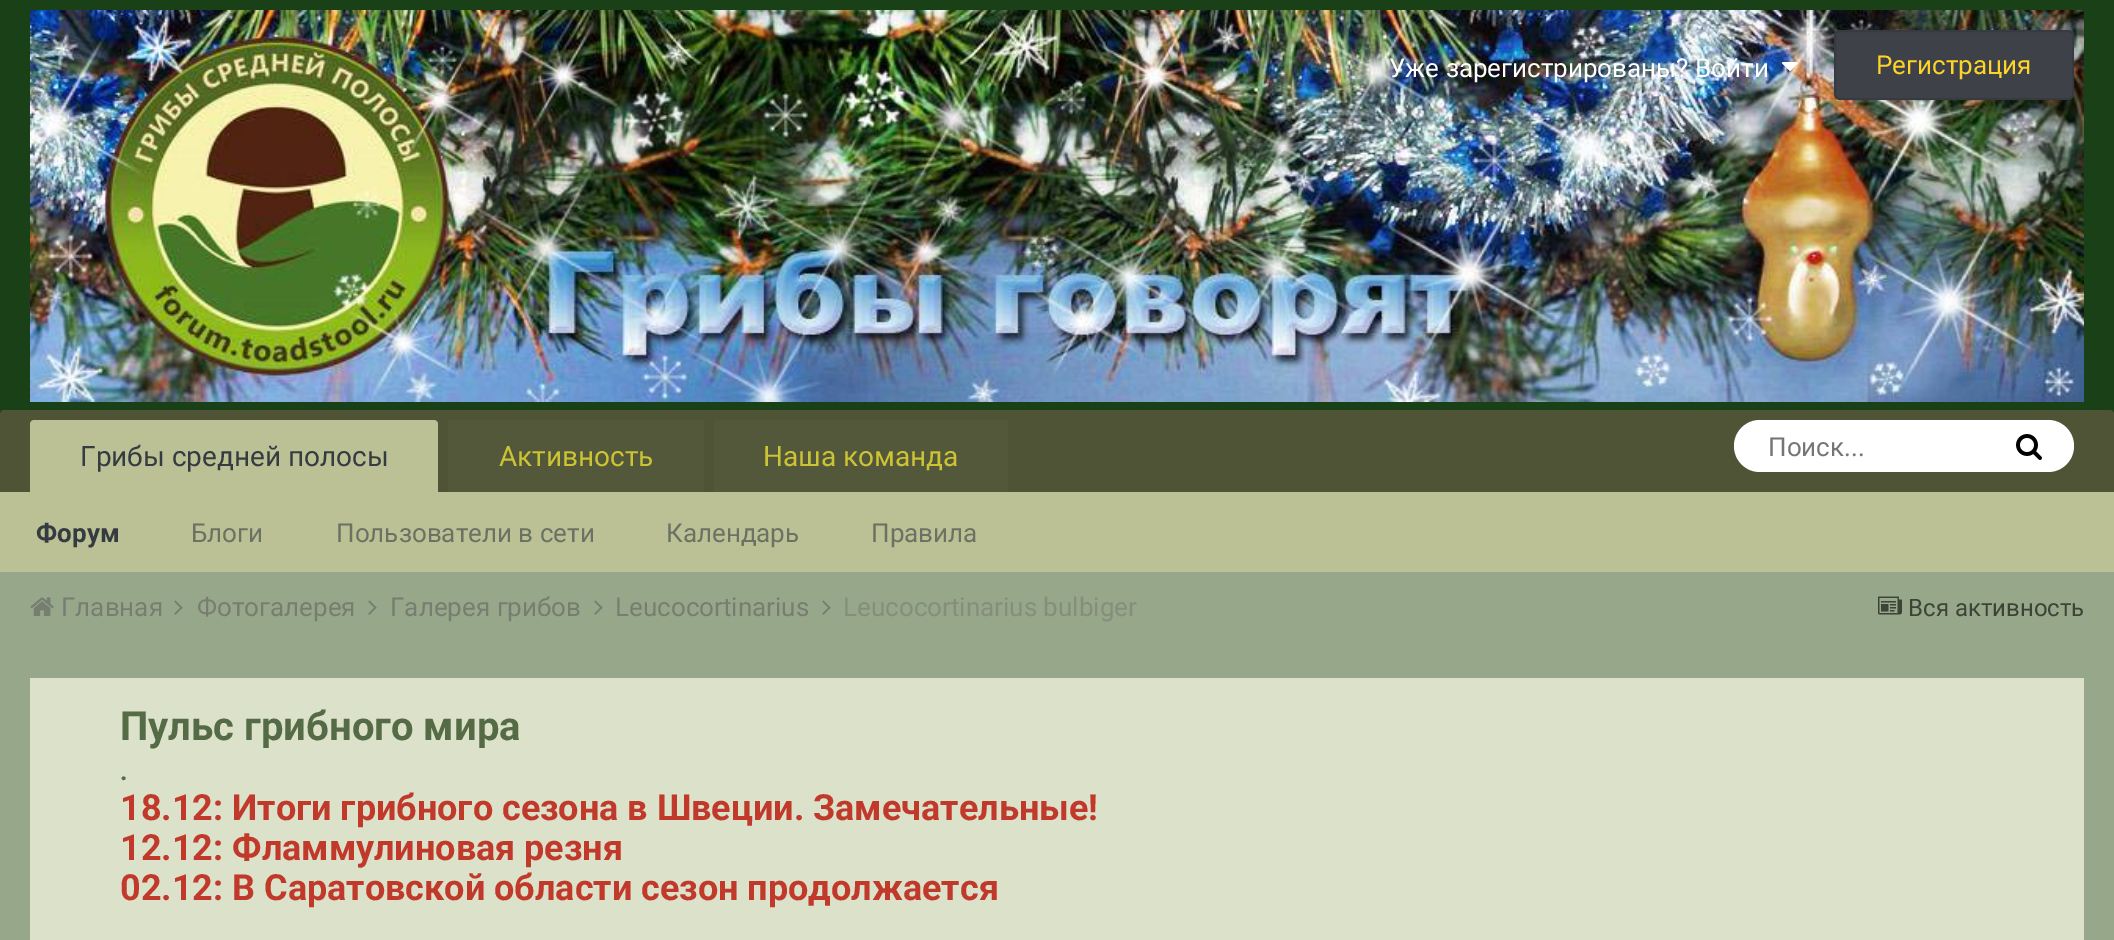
%!PS
<< /PageSize [2114 940] /PageUsesTransparency true >> setpagedevice
/mt/moveto load def
/li/lineto load def
/ct/curveto load def
/cp/closepath load def
/fl/fill load def
/st/stroke load def
/lw/setlinewidth load def
/co { dup -16 bitshift 255 div exch dup -8 bitshift 255 and 255 div exch 255 and 255 div setrgbcolor } def
/fn { [ exch dup neg 0 0 3 -1 roll 0 0 ] selectfont } def
/tx { co fn moveto show } def
/bx { co rectfill } def
/al { dup .setfillconstantalpha .setstrokeconstantalpha } def
/rr { 5 dict begin { /r /h /w /y /x } { exch def } forall
  x r add y moveto x w add y 2 copy h add r arct x w add y h add x 1 index r arct
  x y h add x y r arct x y 2 copy exch w add exch r arct closepath end } def
/im { 5 dict begin { /h /w /y /x /name } { exch def } forall
  gsave x y translate w h scale
  w h 8 [w 0 0 h 0 0] name (r) file false 3 colorimage grestore end } def
0 .pushpdf14devicefilter
0 940 translate 1 -1 scale
4 setmiterlimit
0 0 2114 940 16#1A4017 bx
(media/1.raw) 30 10 2054 392 im
(media/2.raw) 1782 62 16 9 im
16#3E4148 co
1834 30 240 70 6 rr fl
0.1 al
16#000000 co
2 lw
1835 31 238 68 5 rr st
1 al
16#505436 co
4 410 mt 2110 410 li 2112 410 2114 412 2114 414 ct 2114 572 li 0 572 li 0 414 li 0 412 2 410 4 410 ct cp fl
16#BBC195 co
34 420 mt 434 420 li 436 420 438 422 438 424 ct 438 492 li 30 492 li 30 424 li 30 422 32 420 34 420 ct cp fl
0 492 2114 80 16#BBC195 bx
16#54583A co
452 420 mt 700 420 li 702 420 704 422 704 424 ct 704 492 li 448 492 li 448 424 li 448 422 450 420 452 420 ct cp fl
718 420 mt 1004 420 li 1006 420 1008 422 1008 424 ct 1008 492 li 714 492 li 714 424 li 714 422 716 420 718 420 ct cp fl
16#FFFFFF co
1734 420 340 52 26 rr fl
(media/3.raw) 2016 434 26 26 im
0 572 2114 368 16#97A88A bx
(media/4.raw) 30 597 24 19 im
(media/5.raw) 174 600 9 15 im
(media/5.raw) 368 600 9 15 im
(media/5.raw) 594 600 9 15 im
(media/5.raw) 822 600 9 15 im
(media/6.raw) 1878 596 24 19 im
30 678 2054 262 16#DBE2C9 bx
(Уже зарегистрированы? Войти) 1389 77 /Roboto-Regular 26 16#FFFFFF tx
(Регистрация) 1876 74 /Roboto-Regular 26 16#FFD429 tx
(Грибы средней полосы) 80 466 /Roboto-Regular 28 16#353C41 tx
(Форум) 36 542 /Roboto-Bold 26 16#353C41 tx
(Блоги) 191 542 /Roboto-Regular 26 16#6B7163 tx
(Пользователи в сети) 336 542 /Roboto-Regular 26 16#6B7163 tx
(Календарь) 666 542 /Roboto-Regular 26 16#6B7163 tx
(Правила) 871 542 /Roboto-Regular 26 16#6B7163 tx
(Активность) 499 466 /Roboto-Regular 28 16#CCC335 tx
(Наша команда) 763 466 /Roboto-Regular 28 16#CCC335 tx
(Поиск...) 1768 456 /Roboto-Regular 26 16#757575 tx
(Главная) 61 616 /Roboto-Regular 26 16#777D71 tx
(Фотогалерея) 197 616 /Roboto-Regular 26 16#777D71 tx
(Галерея грибов) 390 616 /Roboto-Regular 26 16#777D71 tx
(Leucocortinarius) 615 616 /Roboto-Regular 26 16#777D71 tx
(Leucocortinarius bulbiger) 843 616 /Roboto-Regular 26 16#848E7B tx
(Вся активность) 1908 616 /Roboto-Regular 24 16#3C4337 tx
(Пульс грибного мира) 120 740 /Roboto-Bold 40 16#556B45 tx
(.) 120 780 /Roboto-Bold 26 16#556B45 tx
(18.12: Итоги грибного сезона в Швеции. Замечательные!) 120 820 /Roboto-Bold 36 16#C0392B tx
(12.12: Фламмулиновая резня) 120 860 /Roboto-Bold 36 16#C0392B tx
(02.12: В Саратовской области сезон продолжается) 120 900 /Roboto-Bold 36 16#C0392B tx
.poppdf14devicefilter showpage
